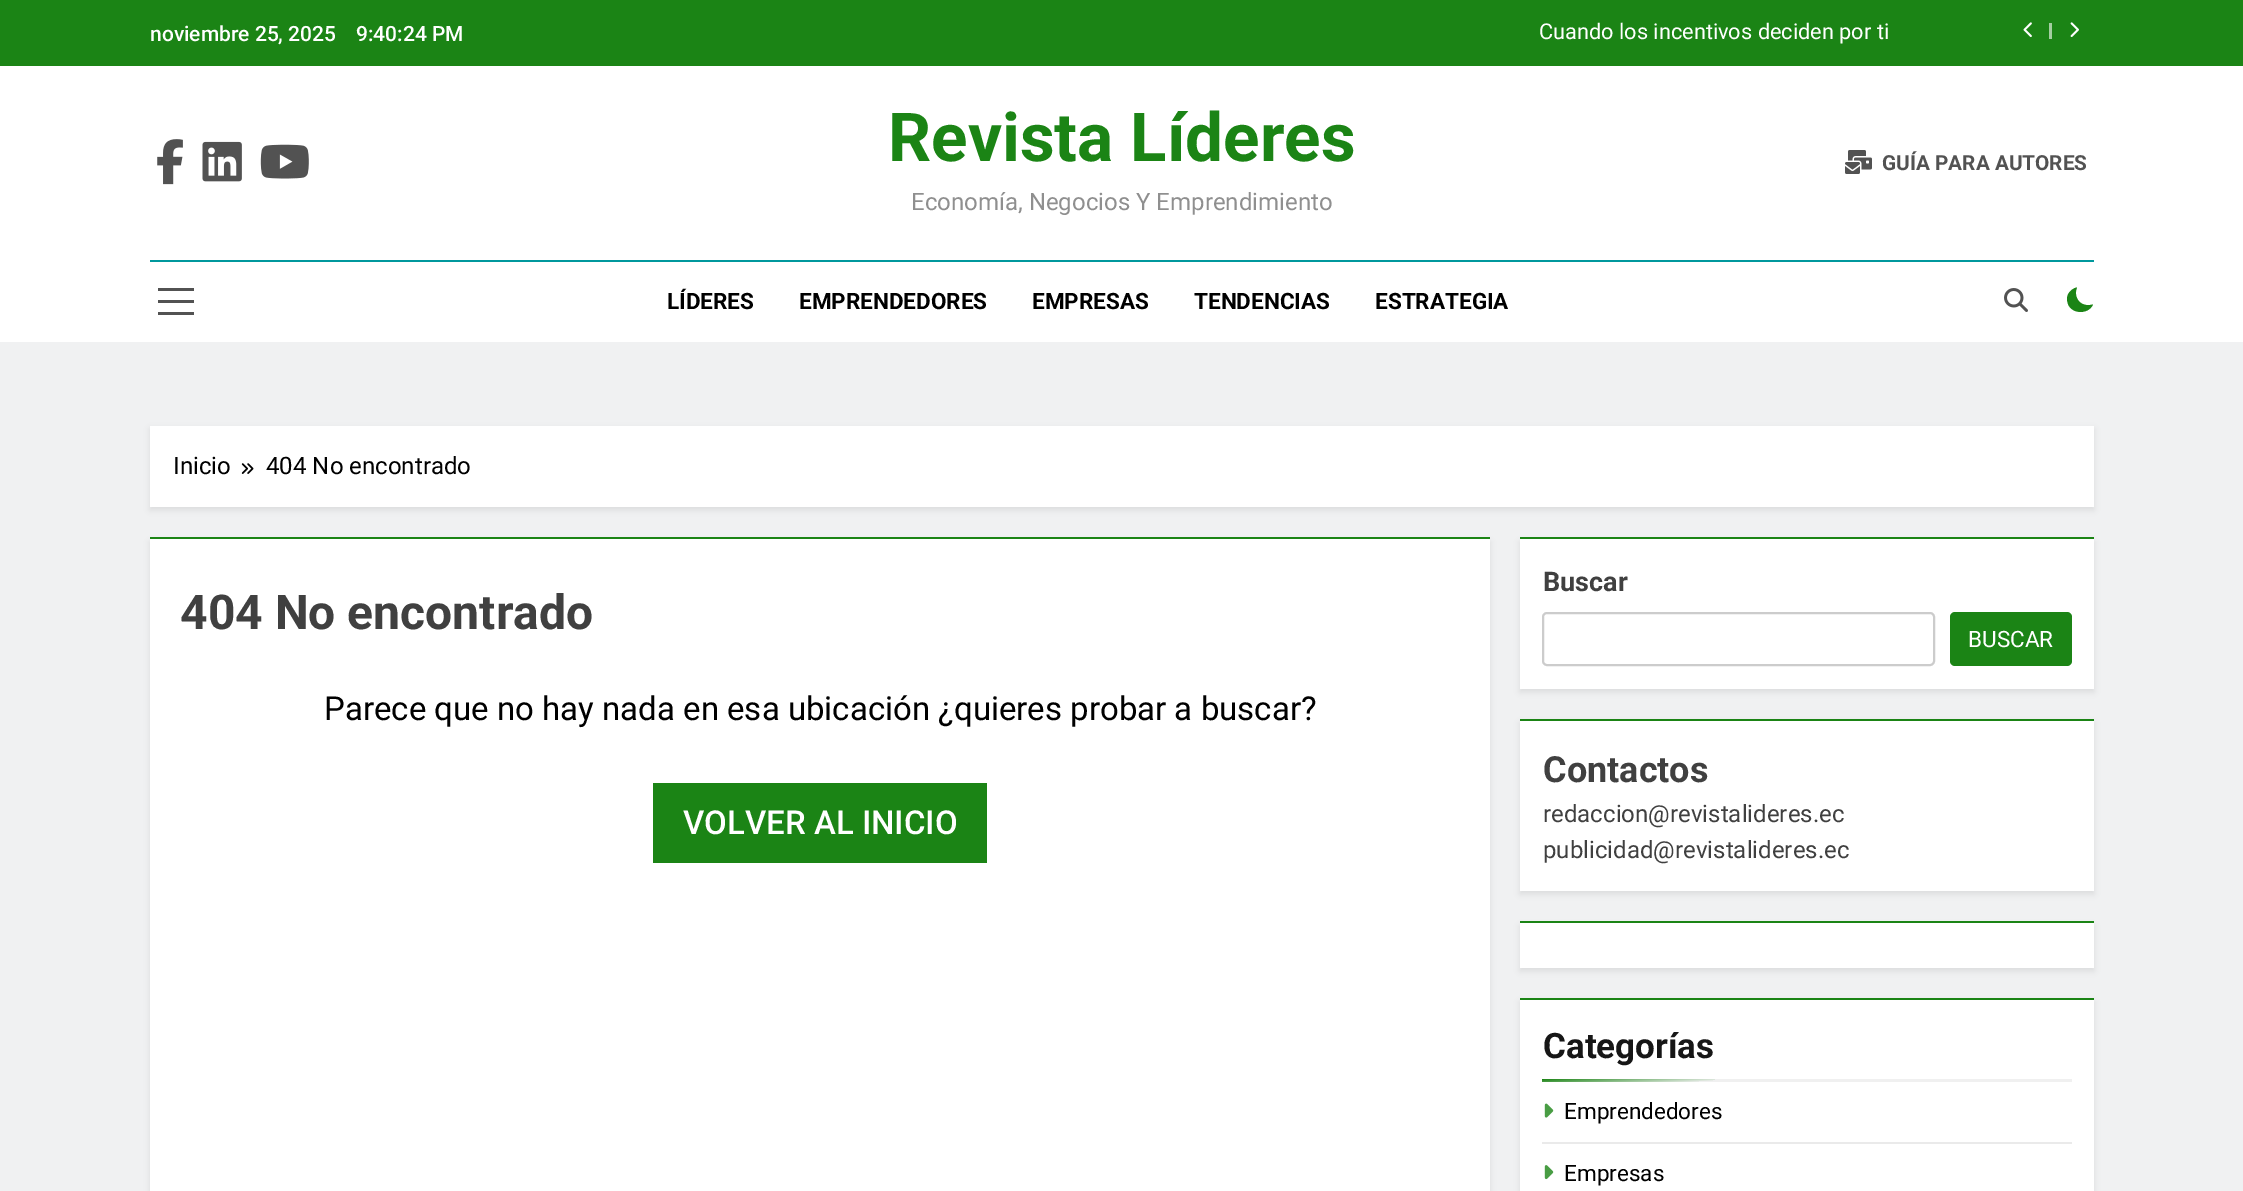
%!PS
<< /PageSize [2243 1191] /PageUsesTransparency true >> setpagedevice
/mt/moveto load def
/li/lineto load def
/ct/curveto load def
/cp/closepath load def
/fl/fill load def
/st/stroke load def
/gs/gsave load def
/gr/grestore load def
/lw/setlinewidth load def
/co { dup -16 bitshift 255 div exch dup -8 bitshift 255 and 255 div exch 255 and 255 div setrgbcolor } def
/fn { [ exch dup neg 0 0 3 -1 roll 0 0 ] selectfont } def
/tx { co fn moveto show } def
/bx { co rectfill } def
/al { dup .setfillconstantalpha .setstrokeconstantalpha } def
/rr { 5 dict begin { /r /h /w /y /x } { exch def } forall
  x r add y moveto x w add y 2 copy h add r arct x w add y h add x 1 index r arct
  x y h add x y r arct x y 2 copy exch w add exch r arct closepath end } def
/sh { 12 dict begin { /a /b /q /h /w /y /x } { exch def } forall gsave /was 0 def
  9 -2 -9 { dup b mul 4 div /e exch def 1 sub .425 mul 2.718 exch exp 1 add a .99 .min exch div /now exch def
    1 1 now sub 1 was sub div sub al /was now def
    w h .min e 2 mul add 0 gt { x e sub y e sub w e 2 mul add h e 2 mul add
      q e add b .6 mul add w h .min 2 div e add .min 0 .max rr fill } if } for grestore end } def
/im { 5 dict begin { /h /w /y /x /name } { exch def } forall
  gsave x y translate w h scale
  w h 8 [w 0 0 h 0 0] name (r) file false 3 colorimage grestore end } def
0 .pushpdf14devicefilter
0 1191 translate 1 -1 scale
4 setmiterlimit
0 0 2243 1191 16#F0F1F2 bx
0 0 2243 66 16#1B8415 bx
(media/1.raw) 2023 22 9 15 im
2049 23 3 16 16#A4CEA1 bx
(media/2.raw) 2070 22 9 15 im
0 66 2243 276 16#FFFFFF bx
(media/3.raw) 157 139 26 46 im
(media/4.raw) 202 141 40 41 im
(media/5.raw) 260 144 49 35 im
(media/6.raw) 1845 150 27 24 im
150 260 1944 2 16#00989D bx
158 288 36 3 16#525252 bx
158 300 36 3 16#525252 bx
158 312 36 3 16#525252 bx
(media/7.raw) 2004 288 24 24 im
16#1B8415 co
2093 304.5 mt 2090 305 li 2078 306.5 2073.5 295 2077 287.5 ct 2073.5 288 2070.5 290.5 2068.5 293.5 ct 2067 296 2066.5 299 2067.5 302 ct 2069.5 314 2088 315.5 2093 304.5 ct cp fl
16#000000 co
150 429 1944 81 0 3 .08 sh
150 426 1944 81 16#FFFFFF bx
(media/8.raw) 241 463 13 11 im
16#000000 co
150 542 1340 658 0 3 .08 sh
150 539 1340 652 16#FFFFFF bx
150 537 1340 2 16#1B8415 bx
653 783 334 80 16#1B8415 bx
16#000000 co
1520 542 574 150 0 3 .08 sh
1520 539 574 150 16#FFFFFF bx
1520 537 574 2 16#1B8415 bx
16#CCCCCC co
2 lw
1543 613 391 52 4 rr st
16#1B8415 co
1950 612 122 54 5 rr fl
16#000000 co
1520 723 574 171 0 3 .08 sh
1520 721 574 170 16#FFFFFF bx
1520 719 574 2 16#1B8415 bx
16#000000 co
1520 926 574 45 0 3 .08 sh
1520 923 574 45 16#FFFFFF bx
1520 921 574 2 16#1B8415 bx
16#000000 co
1520 1002 574 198 0 3 .08 sh
1520 1000 574 191 16#FFFFFF bx
1520 998 574 2 16#1B8415 bx
1715 1079 357 3 16#F0F0F0 bx
gs 1542 1079 mt 1715 1079 li 1715 1082 li 1542 1082 li cp clip newpath
<< /ShadingType 2 /ColorSpace /DeviceRGB /Coords [1628 1073 1629 1087] /Extend [true true] /Function << /FunctionType 2 /Domain [0 1] /C0 [.106 .518 .082] /C1 [.941 .941 .941] /N 1 >> >> shfill gr
1542 1142 530 2 16#EAEAEA bx
(media/9.raw) 1544 1103 10 15 im
(media/10.raw) 1544 1165 10 15 im
(noviembre 25, 2025) 150 41 /Roboto-Medium 21 16#FFFFFF tx
(9:40:24 PM) 356 41 /Roboto-Medium 21 16#FFFFFF tx
(Cuando los incentivos deciden por ti) 1539 39 /Roboto-Regular 21.75 16#FFFFFF tx
(Revista Líderes) 888 161 /Roboto-Bold 67.5 16#1B8415 tx
(Economía, Negocios Y Emprendimiento) 911 210 /Roboto-Regular 24 16#8F8F8F tx
(GUÍA PARA AUTORES) 1882 170 /Roboto-Bold 20.75 16#525252 tx
(LÍDERES) 667 309 /Roboto-Bold 22.5 16#000000 tx
(EMPRENDEDORES) 799 309 /Roboto-Bold 22.5 16#000000 tx
(EMPRESAS) 1032 309 /Roboto-Bold 22.5 16#000000 tx
(TENDENCIAS) 1194 309 /Roboto-Bold 22.5 16#000000 tx
(ESTRATEGIA) 1375 309 /Roboto-Bold 22.5 16#000000 tx
(Inicio) 173 474 /Roboto-Regular 24 16#000000 tx
(404 No encontrado) 266 474 /Roboto-Regular 24 16#000000 tx
(404 No encontrado) 180 629 /Roboto-Bold 48 16#404040 tx
(Parece que no hay nada en esa ubicación ¿quieres probar a buscar?) 324 720 /Roboto-Regular 33 16#000000 tx
(VOLVER AL INICIO) 683 834 /Roboto-Medium 33 16#FFFFFF tx
(Buscar) 1543 591 /Roboto-Bold 27 16#404040 tx
(BUSCAR) 1968 647 /Roboto-Regular 22.5 16#FFFFFF tx
(Contactos) 1543 782 /Roboto-Bold 36 16#404040 tx
(redaccion@revistalideres.ec) 1543 822 /Roboto-Regular 24 16#404040 tx
(publicidad@revistalideres.ec) 1543 858 /Roboto-Regular 24 16#404040 tx
(Categorías) 1543 1058 /Roboto-Bold 35 16#161616 tx
(Emprendedores) 1564 1119 /Roboto-Regular 22.5 16#000000 tx
(Empresas) 1564 1181 /Roboto-Regular 22.5 16#000000 tx
.poppdf14devicefilter showpage
